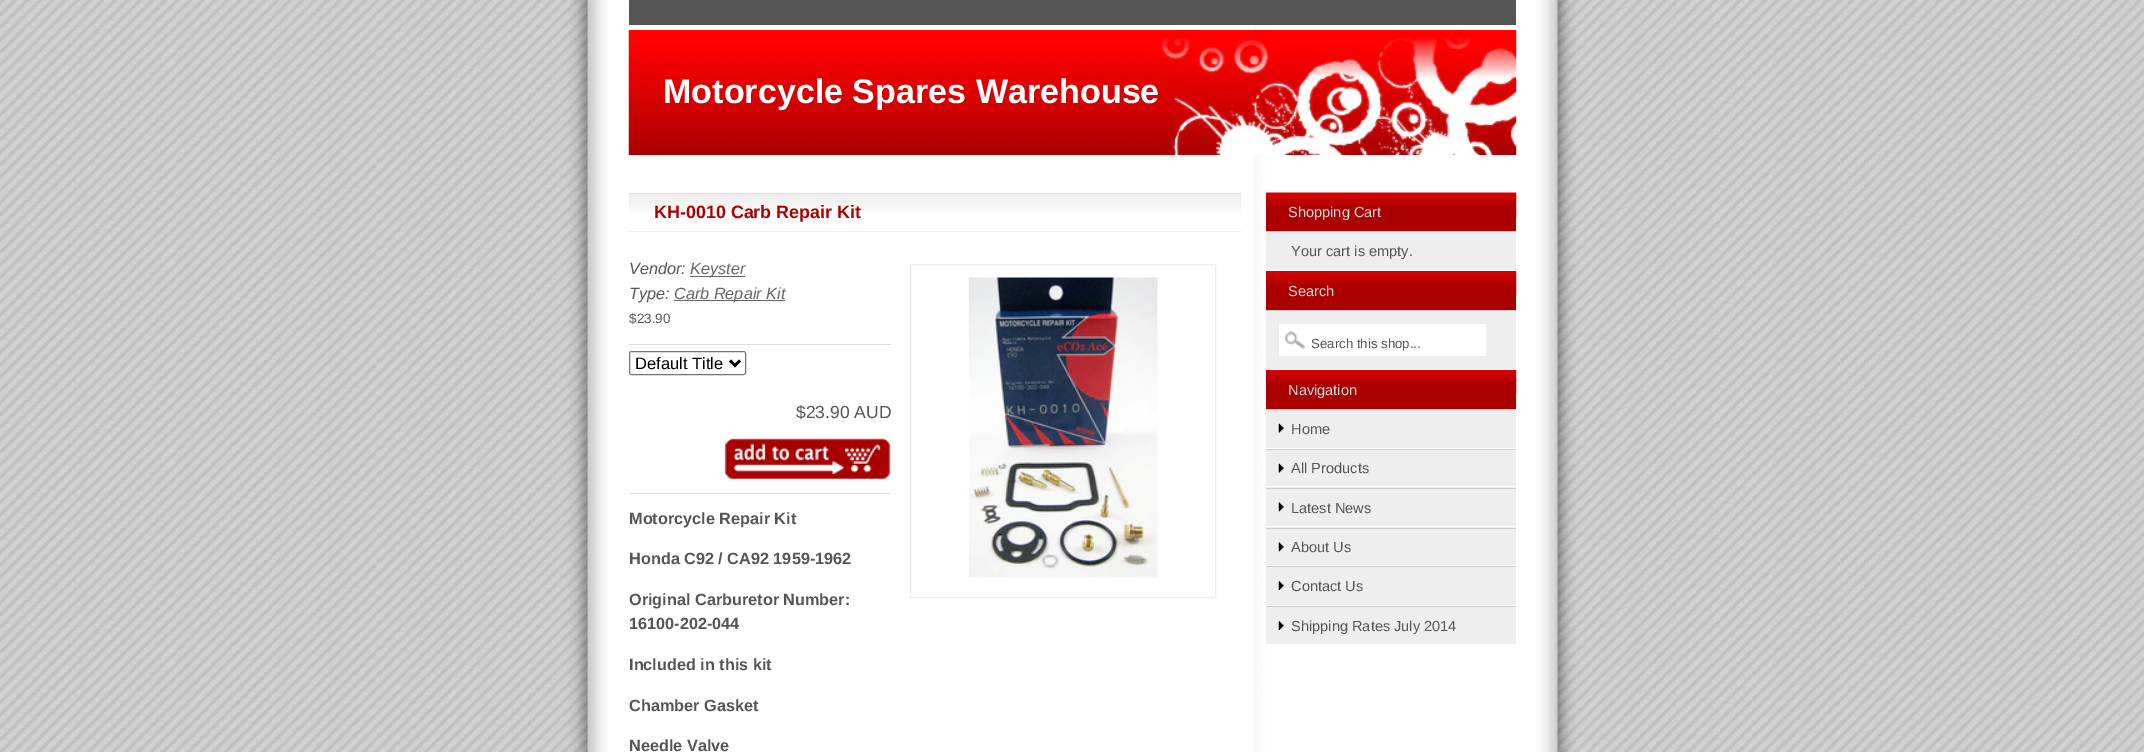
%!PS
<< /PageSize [2144 752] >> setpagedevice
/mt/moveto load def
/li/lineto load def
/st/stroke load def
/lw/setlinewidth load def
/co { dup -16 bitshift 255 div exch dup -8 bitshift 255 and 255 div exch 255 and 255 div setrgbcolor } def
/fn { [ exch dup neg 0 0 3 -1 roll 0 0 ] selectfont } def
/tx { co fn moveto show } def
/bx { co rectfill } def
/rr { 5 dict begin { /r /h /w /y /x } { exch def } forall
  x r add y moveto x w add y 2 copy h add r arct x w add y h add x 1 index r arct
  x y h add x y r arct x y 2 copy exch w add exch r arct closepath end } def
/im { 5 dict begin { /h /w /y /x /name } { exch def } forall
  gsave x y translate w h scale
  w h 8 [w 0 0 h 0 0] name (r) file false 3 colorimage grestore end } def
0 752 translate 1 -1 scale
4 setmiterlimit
0 0 2144 752 16#FFFFFF bx
(media/1.raw) 0 0 2144 752 im
(media/2.raw) 628 30 889 125 im
629 0 887 25 16#555555 bx
(media/3.raw) 628 193 614 20 im
629 193 612 1 16#DDDDDD bx
629 231 612 1 16#EEEEEE bx
690 276 55 1 16#666666 bx
674 300 111 1 16#666666 bx
16#EEEEEE co
910.5 264.5 305 333 rectstroke
(media/4.raw) 968 277 190 301 im
629 344 262 1 16#DDDDDD bx
629 493 262 1 16#DDDDDD bx
16#767676 co
629.5 351.5 116 23 2 rr st
16#000000 co
2.5 lw
730 360.5 mt 735 365.5 li 740 360.5 li st
(media/5.raw) 724 438 167 41 im
1266 193 250 38 16#AA0000 bx
(media/6.raw) 1266 192 251 26 im
1266 232 250 38 16#EEEEEE bx
1266 231 250 1 16#CCCCCC bx
1266 271 250 39 16#AA0000 bx
(media/7.raw) 1266 271 251 26 im
1266 311 250 58 16#EEEEEE bx
1266 310 250 1 16#CCCCCC bx
1279 324 207 32 16#FFFFFF bx
(media/8.raw) 1285 331 20 18 im
1266 370 250 39 16#AA0000 bx
(media/9.raw) 1266 370 251 25 im
1266 410 250 38 16#EEEEEE bx
1266 409 250 1 16#CCCCCC bx
(media/10.raw) 1278 423 6 10 im
1266 450 250 38 16#EEEEEE bx
1266 449 250 1 16#CCCCCC bx
1266 486 250 1 16#FFFFFF bx
(media/10.raw) 1278 463 6 10 im
1266 489 250 39 16#EEEEEE bx
1266 488 250 1 16#CCCCCC bx
1266 526 250 1 16#FFFFFF bx
(media/11.raw) 1278 502 6 10 im
1266 529 250 36 16#EEEEEE bx
1266 528 250 1 16#CCCCCC bx
(media/11.raw) 1278 542 6 10 im
1266 567 250 38 16#EEEEEE bx
1266 566 250 1 16#CCCCCC bx
(media/12.raw) 1278 581 6 9 im
1266 607 250 37 16#EEEEEE bx
1266 606 250 1 16#CCCCCC bx
(media/12.raw) 1278 621 6 9 im
(Motorcycle Spares Warehouse) 663 103 /LiberationSans-Bold 34.1 16#FFFFFF tx
(KH-0010 Carb Repair Kit) 654 218 /LiberationSans-Bold 17.9 16#AA0000 tx
(Vendor:) 629 274 /LiberationSans-Italic 16.25 16#555555 tx
(Keyster) 690 274 /LiberationSans-Italic 16.25 16#666666 tx
(Type:) 629 299 /LiberationSans-Italic 16.25 16#555555 tx
(Carb Repair Kit) 674 299 /LiberationSans-Italic 16.25 16#666666 tx
($23.90) 629 323 /LiberationSans-Regular 13.5 16#555555 tx
(Default Title) 635 369 /LiberationSans-Regular 16.5 16#000000 tx
($23.90 AUD) 796 418 /LiberationSans-Regular 17.5 16#555555 tx
(Motorcycle Repair Kit) 629 524 /LiberationSans-Bold 16.25 16#555555 tx
(Honda C92 / CA92 1959-1962) 629 564 /LiberationSans-Bold 16.25 16#555555 tx
(Original Carburetor Number:) 629 605 /LiberationSans-Bold 16.25 16#555555 tx
(16100-202-044) 629 629 /LiberationSans-Bold 16.25 16#555555 tx
(Included in this kit) 629 670 /LiberationSans-Bold 16.25 16#555555 tx
(Chamber Gasket) 629 711 /LiberationSans-Bold 16.25 16#555555 tx
(Needle Valve) 629 751 /LiberationSans-Bold 16.25 16#555555 tx
(Shopping Cart) 1288 217 /LiberationSans-Regular 14.6 16#DDDDDD tx
(Your cart is empty.) 1291 256 /LiberationSans-Regular 14.6 16#555555 tx
(Search) 1288 296 /LiberationSans-Regular 14.6 16#DDDDDD tx
(Search this shop...) 1311 348 /LiberationSans-Regular 13.25 16#555555 tx
(Navigation) 1288 395 /LiberationSans-Regular 14.6 16#DDDDDD tx
(Home) 1291 434 /LiberationSans-Regular 14.6 16#555555 tx
(All Products) 1291 473 /LiberationSans-Regular 14.6 16#555555 tx
(Latest News) 1291 513 /LiberationSans-Regular 14.6 16#555555 tx
(About Us) 1291 552 /LiberationSans-Regular 14.6 16#555555 tx
(Contact Us) 1291 591 /LiberationSans-Regular 14.6 16#555555 tx
(Shipping Rates July 2014) 1291 631 /LiberationSans-Regular 14.6 16#555555 tx
showpage
